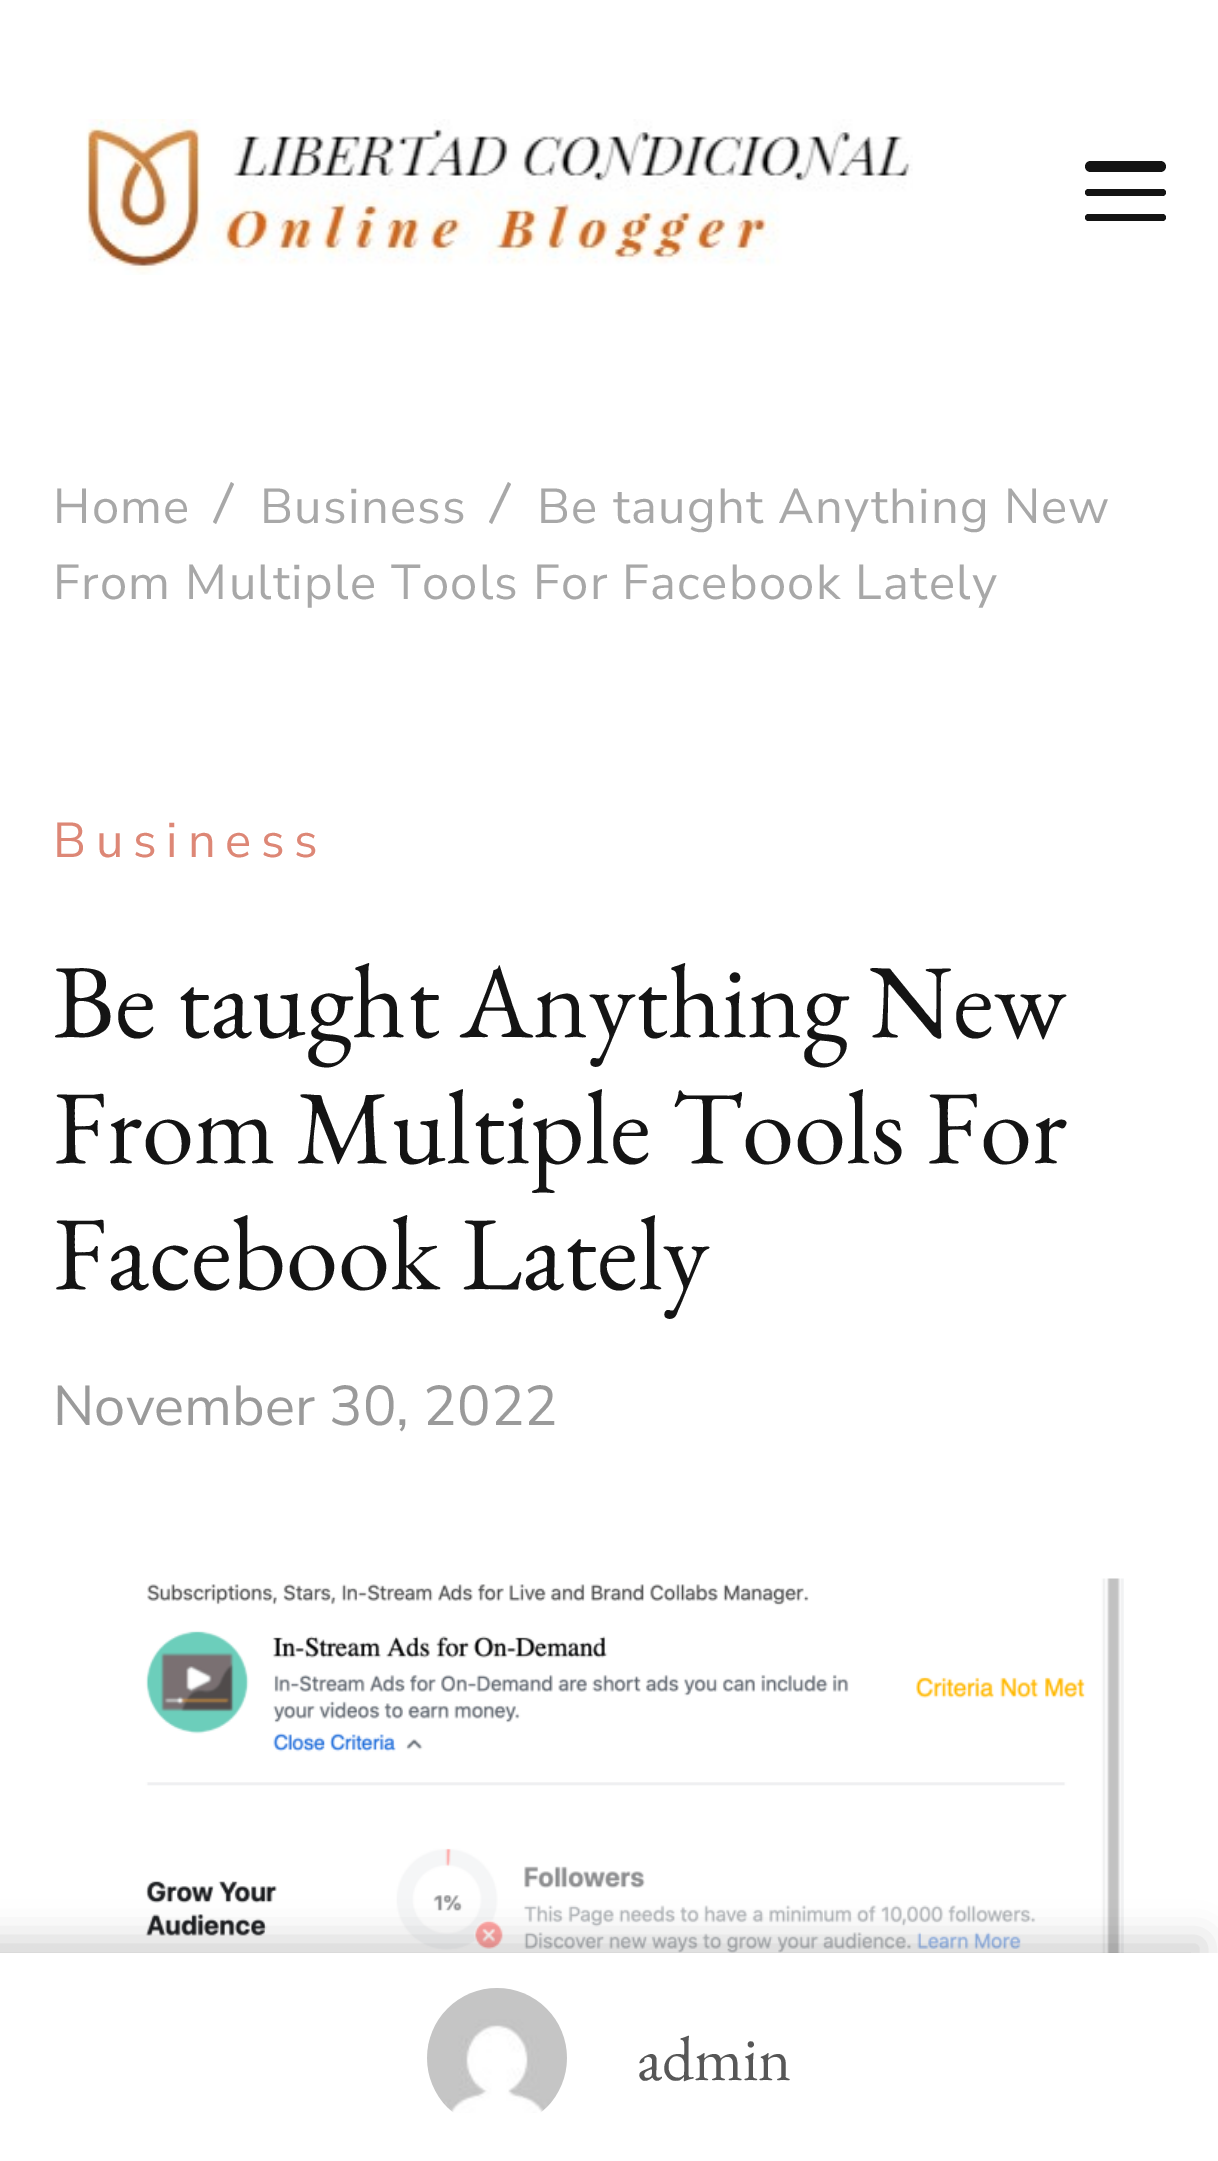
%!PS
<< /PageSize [1218 2161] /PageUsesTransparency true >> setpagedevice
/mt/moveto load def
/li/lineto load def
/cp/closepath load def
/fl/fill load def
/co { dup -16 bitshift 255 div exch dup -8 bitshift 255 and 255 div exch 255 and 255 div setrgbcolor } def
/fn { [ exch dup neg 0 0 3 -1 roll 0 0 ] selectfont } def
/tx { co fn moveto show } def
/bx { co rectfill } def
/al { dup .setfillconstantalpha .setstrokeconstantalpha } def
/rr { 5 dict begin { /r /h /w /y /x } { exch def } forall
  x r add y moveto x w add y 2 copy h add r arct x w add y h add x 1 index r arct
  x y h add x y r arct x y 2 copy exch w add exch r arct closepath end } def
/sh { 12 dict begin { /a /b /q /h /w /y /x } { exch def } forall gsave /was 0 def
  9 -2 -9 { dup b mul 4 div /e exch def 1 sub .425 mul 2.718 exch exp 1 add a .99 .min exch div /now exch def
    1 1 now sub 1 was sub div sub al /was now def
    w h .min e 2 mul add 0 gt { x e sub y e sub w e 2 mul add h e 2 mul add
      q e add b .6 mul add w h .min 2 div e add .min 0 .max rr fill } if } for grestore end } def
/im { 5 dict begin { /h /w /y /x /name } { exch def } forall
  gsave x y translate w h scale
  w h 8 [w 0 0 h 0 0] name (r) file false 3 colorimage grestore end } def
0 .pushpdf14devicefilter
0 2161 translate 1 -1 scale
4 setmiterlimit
0 0 1218 2161 16#FFFFFF bx
(media/1.raw) 86 119 827 156 im
16#141414 co
1085 161 81 11 5.5 rr fl
1085 189 81 7 3.5 rr fl
1085 214 81 7 3.5 rr fl
16#A8A8A8 co
508 482 mt 511 484 li 492 524 li 489 522 li cp fl
231 482 mt 234 484 li 216 524 li 213 522 li cp fl
(media/2.raw) 145 1578 979 375 im
16#000000 co
-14 1939 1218 210 0 17.5 .17 sh
0 1953 1218 208 16#FFFFFF bx
(media/3.raw) 427 1988 140 125 im
/NunitoSans-Regular 49 fn
16#A8A8A8 co
53 523 mt 1.25 0 (Home) ashow
537 523 mt 1.25 0 (Be taught Anything New) ashow
53 599 mt 1.25 0 (From Multiple Tools For Facebook Lately) ashow
260 523 mt 1.25 0 (Business) ashow
16#DD8776 co
53 857 mt 9.75 0 (Business) ashow
(Be taught Anything New) 53 1037 /EBGaramond-Regular 105 16#141414 tx
(From Multiple Tools For) 53 1163 /EBGaramond-Regular 105 16#141414 tx
(Facebook Lately) 53 1289 /EBGaramond-Regular 105 16#141414 tx
(November 30, 2022) 53 1425 /NunitoSans-Regular 56 16#9A9A9A tx
(admin) 637 2080 /EBGaramond-Regular 63 16#575757 tx
.poppdf14devicefilter showpage
